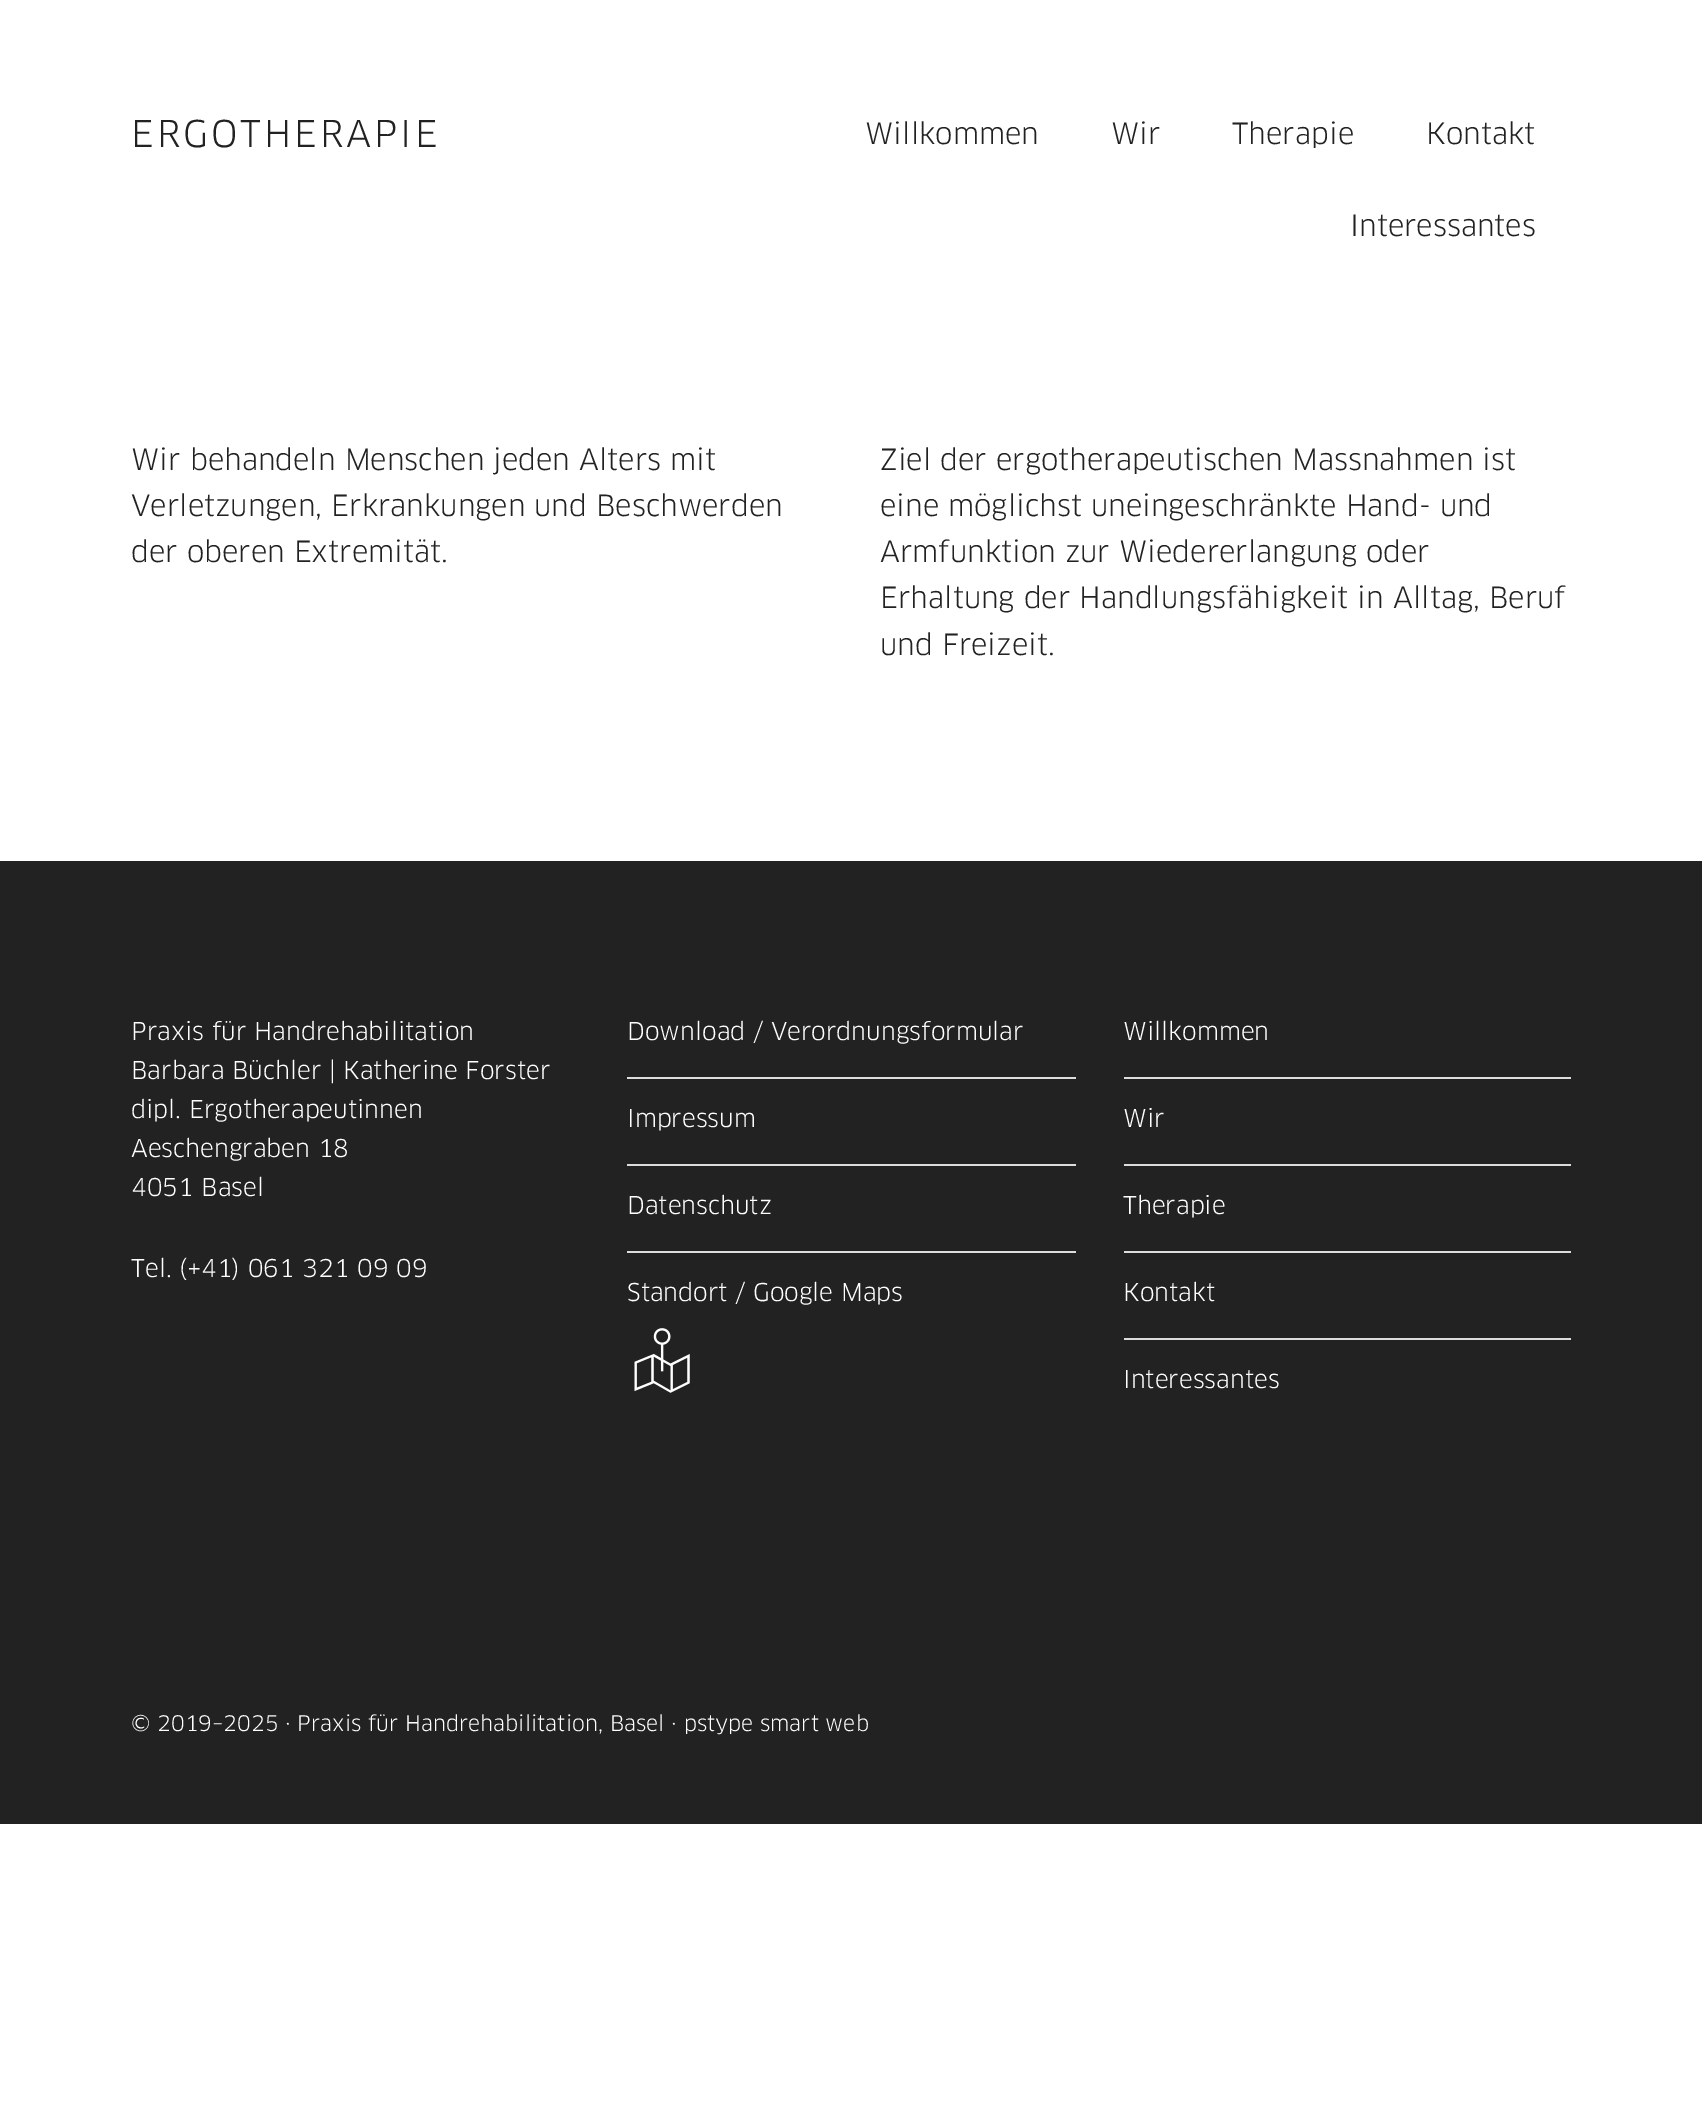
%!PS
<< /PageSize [1702 2115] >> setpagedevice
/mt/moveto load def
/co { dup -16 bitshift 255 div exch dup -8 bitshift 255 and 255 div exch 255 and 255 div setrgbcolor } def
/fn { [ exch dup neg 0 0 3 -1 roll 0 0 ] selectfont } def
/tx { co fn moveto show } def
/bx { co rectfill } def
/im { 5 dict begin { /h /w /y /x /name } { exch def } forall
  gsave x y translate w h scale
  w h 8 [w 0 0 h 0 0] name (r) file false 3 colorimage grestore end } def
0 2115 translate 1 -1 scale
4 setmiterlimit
0 0 1702 2115 16#FFFFFF bx
0 861 1702 963 16#222222 bx
627 1077 449 2 16#DDDDDD bx
627 1164 449 2 16#DDDDDD bx
627 1251 449 2 16#DDDDDD bx
(media/1.raw) 634 1328 56 65 im
1124 1077 447 2 16#DDDDDD bx
1124 1164 447 2 16#DDDDDD bx
1124 1251 447 2 16#DDDDDD bx
1124 1338 447 2 16#DDDDDD bx
/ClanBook-Regular 36 fn
16#222222 co
131 147 mt 3 0 (ERGOTHERAPIE) ashow
(Willkommen) 865 144 /ClanBook-Regular 28.5 16#222222 tx
(Wir) 1111 144 /ClanBook-Regular 28.5 16#222222 tx
(Therapie) 1232 144 /ClanBook-Regular 28.5 16#222222 tx
(Kontakt) 1426 144 /ClanBook-Regular 28.5 16#222222 tx
(Interessantes) 1350 236 /ClanBook-Regular 28.5 16#222222 tx
(Wir behandeln Menschen jeden Alters mit) 131 470 /ClanBook-Regular 28.5 16#222222 tx
(Verletzungen, Erkrankungen und Beschwerden) 131 516 /ClanBook-Regular 28.5 16#222222 tx
(der oberen Extremität.) 131 562 /ClanBook-Regular 28.5 16#222222 tx
(Ziel der ergotherapeutischen Massnahmen ist) 880 470 /ClanBook-Regular 28.5 16#222222 tx
(eine möglichst uneingeschränkte Hand- und) 880 516 /ClanBook-Regular 28.5 16#222222 tx
(Armfunktion zur Wiedererlangung oder) 880 562 /ClanBook-Regular 28.5 16#222222 tx
(Erhaltung der Handlungsfähigkeit in Alltag, Beruf) 880 608 /ClanBook-Regular 28.5 16#222222 tx
(und Freizeit.) 880 655 /ClanBook-Regular 28.5 16#222222 tx
(Praxis für Handrehabilitation) 131 1040 /ClanBook-Regular 24 16#FFFFFF tx
(Barbara Büchler | Katherine Forster) 131 1079 /ClanBook-Regular 24 16#FFFFFF tx
(dipl. Ergotherapeutinnen) 131 1118 /ClanBook-Regular 24 16#FFFFFF tx
(Aeschengraben 18) 131 1157 /ClanBook-Regular 24 16#FFFFFF tx
(4051 Basel) 131 1196 /ClanBook-Regular 24 16#FFFFFF tx
(Tel. \(+41\) 061 321 09 09) 131 1277 /ClanBook-Regular 24 16#FFFFFF tx
(Download / Verordnungsformular) 627 1040 /ClanBook-Regular 24 16#FFFFFF tx
(Impressum) 627 1127 /ClanBook-Regular 24 16#FFFFFF tx
(Datenschutz) 627 1214 /ClanBook-Regular 24 16#FFFFFF tx
(Standort / Google Maps) 627 1301 /ClanBook-Regular 24 16#FFFFFF tx
(Willkommen) 1123 1040 /ClanBook-Regular 24 16#FFFFFF tx
(Wir) 1123 1127 /ClanBook-Regular 24 16#FFFFFF tx
(Therapie) 1123 1214 /ClanBook-Regular 24 16#FFFFFF tx
(Kontakt) 1123 1301 /ClanBook-Regular 24 16#FFFFFF tx
(Interessantes) 1123 1388 /ClanBook-Regular 24 16#FFFFFF tx
(© 2019–2025 · Praxis für Handrehabilitation, Basel · pstype smart web) 131 1731 /ClanBook-Regular 21 16#FFFFFF tx
showpage
